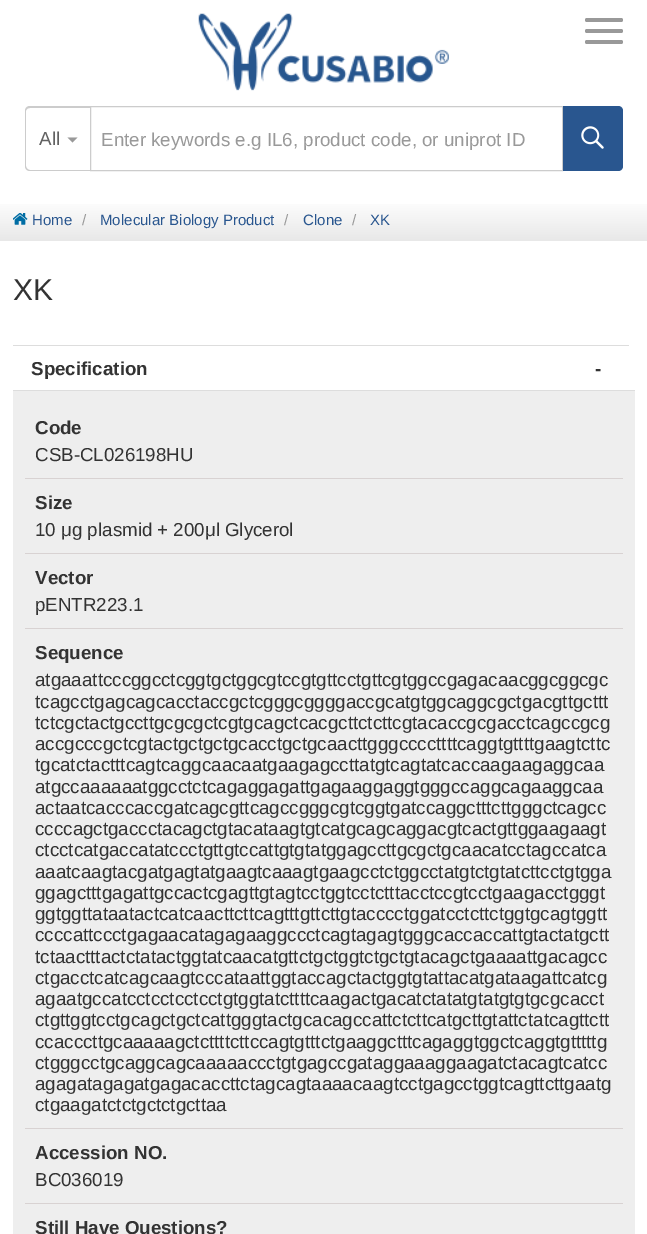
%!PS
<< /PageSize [647 1234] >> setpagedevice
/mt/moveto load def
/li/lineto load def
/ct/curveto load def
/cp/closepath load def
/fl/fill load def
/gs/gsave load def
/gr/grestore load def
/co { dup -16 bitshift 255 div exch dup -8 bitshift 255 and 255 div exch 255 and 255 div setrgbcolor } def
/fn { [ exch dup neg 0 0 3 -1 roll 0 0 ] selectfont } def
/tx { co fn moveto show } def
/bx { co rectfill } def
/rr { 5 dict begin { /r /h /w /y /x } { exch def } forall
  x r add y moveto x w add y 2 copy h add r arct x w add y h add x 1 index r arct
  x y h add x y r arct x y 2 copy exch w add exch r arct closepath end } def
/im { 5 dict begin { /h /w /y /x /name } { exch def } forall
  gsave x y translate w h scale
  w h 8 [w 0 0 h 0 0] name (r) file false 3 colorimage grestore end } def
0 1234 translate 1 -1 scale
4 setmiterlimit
0 0 647 1234 16#FFFFFF bx
(media/1.raw) 198 13 251 78 im
16#999999 co
585 18 38 4 2 rr fl
585 29 38 4 2 rr fl
585 40 38 4 2 rr fl
16#CCCCCC co
30 106 mt 90 106 li 90 171 li 30 171 li 27 171 25 169 25 166 ct 25 111 li 25 108 27 106 30 106 ct cp 30 108 mt 90 108 li 90 170 li 30 170 li 28 170 26 168 26 166 ct 26 111 li 26 109 28 108 30 108 ct cp eofill
16#999999 co
67.5 137.5 mt 77.5 137.5 li 72.5 142.5 li cp fl
16#CCCCCC co
90.5 106.5 472 64 rectstroke
16#29568F co
563 106 mt 618 106 li 621 106 623 108 623 111 ct 623 166 li 623 169 621 171 618 171 ct 563 171 li cp fl
(media/2.raw) 581 126 23 23 im
gs 0 204 mt 647 204 li 647 241 li 0 241 li cp clip newpath
<< /ShadingType 2 /ColorSpace /DeviceRGB /Coords [324 199 324 241] /Extend [true true] /Function << /FunctionType 2 /Domain [0 1] /C0 [1 1 1] /C1 [.91 .91 .91] /N 1 >> >> shfill gr
(media/3.raw) 13 213 15 12 im
13 345 616 1 16#DDDDDD bx
13 391 622 843 16#EEEEEE bx
13 390 622 1 16#DDDDDD bx
25 478 598 1 16#D8D2D2 bx
25 553 598 1 16#D8D2D2 bx
25 628 598 1 16#D8D2D2 bx
25 1128 598 1 16#D8D2D2 bx
25 1203 598 1 16#D8D2D2 bx
(All) 39 145 /LiberationSans-Regular 18.75 16#626262 tx
(Enter keywords e.g IL6, product code, or uniprot ID) 101 146 /LiberationSans-Regular 18.75 16#999999 tx
(Home) 32 225 /LiberationSans-Regular 15 16#29568F tx
(/) 82 225 /LiberationSans-Regular 15 16#999999 tx
(Molecular Biology Product) 100 225 /LiberationSans-Regular 15 16#29568F tx
(/) 284 225 /LiberationSans-Regular 15 16#999999 tx
(Clone) 303 225 /LiberationSans-Regular 15 16#29568F tx
(/) 352 225 /LiberationSans-Regular 15 16#999999 tx
(XK) 370 225 /LiberationSans-Regular 15 16#29568F tx
(XK) 13 300 /LiberationSans-Regular 30 16#333333 tx
(Specification) 31 375 /LiberationSans-Bold 18.75 16#333333 tx
(-) 595 375 /LiberationSans-Bold 18.75 16#333333 tx
(Code) 35 434 /LiberationSans-Bold 18.75 16#333333 tx
(CSB-CL026198HU) 35 461 /LiberationSans-Regular 18.75 16#333333 tx
(Size) 35 509 /LiberationSans-Bold 18.75 16#333333 tx
(10 μg plasmid + 200μl Glycerol) 35 536 /LiberationSans-Regular 18.75 16#333333 tx
(Vector) 35 584 /LiberationSans-Bold 18.75 16#333333 tx
(pENTR223.1) 35 611 /LiberationSans-Regular 18.75 16#333333 tx
(Sequence) 35 659 /LiberationSans-Bold 18.75 16#333333 tx
(atgaaattcccggcctcggtgctggcgtccgtgttcctgttcgtggccgagacaacggcggcgc) 35 686 /LiberationSans-Regular 18.75 16#333333 tx
(tcagcctgagcagcacctaccgctcgggcggggaccgcatgtggcaggcgctgacgttgcttt) 35 708 /LiberationSans-Regular 18.75 16#333333 tx
(tctcgctactgccttgcgcgctcgtgcagctcacgcttctcttcgtacaccgcgacctcagccgcg) 35 729 /LiberationSans-Regular 18.75 16#333333 tx
(accgcccgctcgtactgctgctgcacctgctgcaacttgggccccttttcaggtgttttgaagtcttc) 35 750 /LiberationSans-Regular 18.75 16#333333 tx
(tgcatctactttcagtcaggcaacaatgaagagccttatgtcagtatcaccaagaagaggcaa) 35 771 /LiberationSans-Regular 18.75 16#333333 tx
(atgccaaaaaatggcctctcagaggagattgagaaggaggtgggccaggcagaaggcaa) 35 793 /LiberationSans-Regular 18.75 16#333333 tx
(actaatcacccaccgatcagcgttcagccgggcgtcggtgatccaggctttcttgggctcagcc) 35 814 /LiberationSans-Regular 18.75 16#333333 tx
(ccccagctgaccctacagctgtacataagtgtcatgcagcaggacgtcactgttggaagaagt) 35 835 /LiberationSans-Regular 18.75 16#333333 tx
(ctcctcatgaccatatccctgttgtccattgtgtatggagccttgcgctgcaacatcctagccatca) 35 856 /LiberationSans-Regular 18.75 16#333333 tx
(aaatcaagtacgatgagtatgaagtcaaagtgaagcctctggcctatgtctgtatcttcctgtgga) 35 878 /LiberationSans-Regular 18.75 16#333333 tx
(ggagctttgagattgccactcgagttgtagtcctggtcctctttacctccgtcctgaagacctgggt) 35 899 /LiberationSans-Regular 18.75 16#333333 tx
(ggtggttataatactcatcaacttcttcagtttgttcttgtacccctggatcctcttctggtgcagtggtt) 35 920 /LiberationSans-Regular 18.75 16#333333 tx
(ccccattccctgagaacatagagaaggccctcagtagagtgggcaccaccattgtactatgctt) 35 941 /LiberationSans-Regular 18.75 16#333333 tx
(tctaactttactctatactggtatcaacatgttctgctggtctgctgtacagctgaaaattgacagcc) 35 963 /LiberationSans-Regular 18.75 16#333333 tx
(ctgacctcatcagcaagtcccataattggtaccagctactggtgtattacatgataagattcatcg) 35 984 /LiberationSans-Regular 18.75 16#333333 tx
(agaatgccatcctcctcctcctgtggtatcttttcaagactgacatctatatgtatgtgtgcgcacct) 35 1005 /LiberationSans-Regular 18.75 16#333333 tx
(ctgttggtcctgcagctgctcattgggtactgcacagccattctcttcatgcttgtattctatcagttctt) 35 1026 /LiberationSans-Regular 18.75 16#333333 tx
(ccacccttgcaaaaagctcttttcttccagtgtttctgaaggctttcagaggtggctcaggtgtttttg) 35 1048 /LiberationSans-Regular 18.75 16#333333 tx
(ctgggcctgcaggcagcaaaaaccctgtgagccgataggaaaggaagatctacagtcatcc) 35 1069 /LiberationSans-Regular 18.75 16#333333 tx
(agagatagagatgagacaccttctagcagtaaaacaagtcctgagcctggtcagttcttgaatg) 35 1090 /LiberationSans-Regular 18.75 16#333333 tx
(ctgaagatctctgctctgcttaa) 35 1111 /LiberationSans-Regular 18.75 16#333333 tx
(Accession NO.) 35 1159 /LiberationSans-Bold 18.75 16#333333 tx
(BC036019) 35 1186 /LiberationSans-Regular 18.75 16#333333 tx
(Still Have Questions?) 35 1234 /LiberationSans-Bold 18.75 16#333333 tx
showpage
